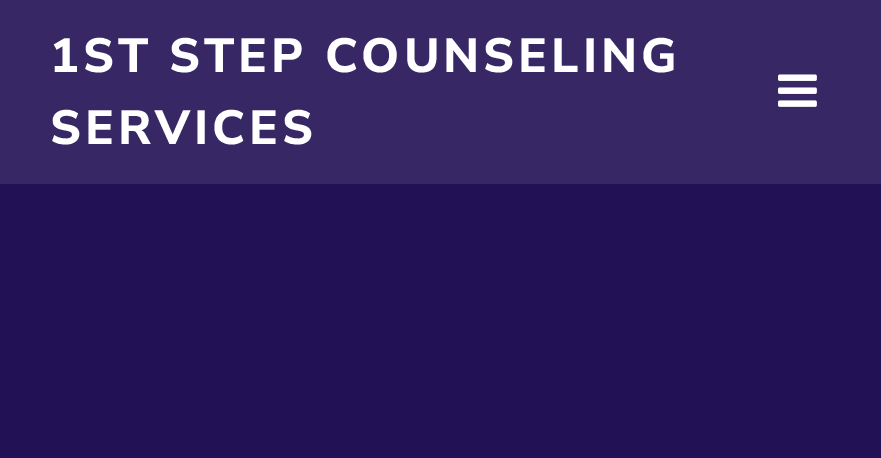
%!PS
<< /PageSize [881 458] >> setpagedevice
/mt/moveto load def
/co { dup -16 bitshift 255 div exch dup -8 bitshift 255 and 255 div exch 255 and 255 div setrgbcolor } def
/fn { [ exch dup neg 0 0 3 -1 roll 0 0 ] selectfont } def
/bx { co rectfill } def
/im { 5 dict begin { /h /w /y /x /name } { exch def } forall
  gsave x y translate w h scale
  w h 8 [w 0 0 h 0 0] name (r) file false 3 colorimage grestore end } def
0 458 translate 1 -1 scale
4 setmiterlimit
0 0 881 458 16#221154 bx
0 0 881 184 16#372865 bx
(media/1.raw) 778 74 39 33 im
/NunitoSans-ExtraBold 48 fn
16#FFFFFF co
50 72 mt 4 0 (1ST STEP COUNSELING) ashow
50 144 mt 4 0 (SERVICES) ashow
showpage
